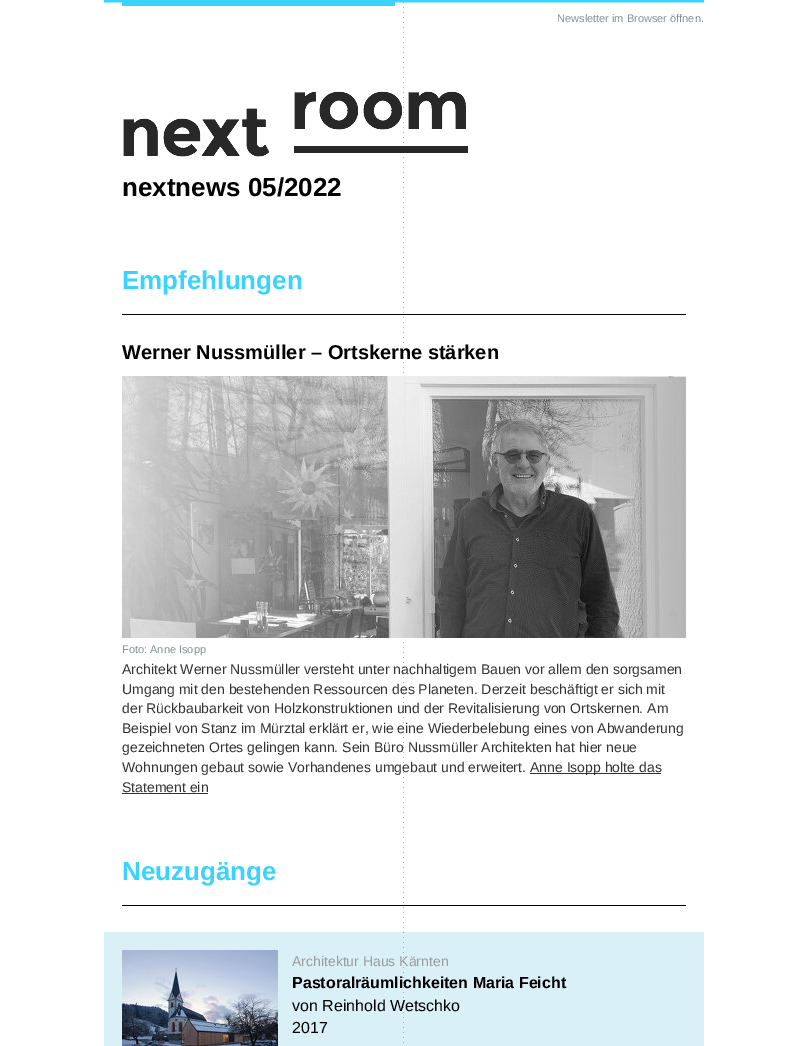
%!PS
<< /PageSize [808 1046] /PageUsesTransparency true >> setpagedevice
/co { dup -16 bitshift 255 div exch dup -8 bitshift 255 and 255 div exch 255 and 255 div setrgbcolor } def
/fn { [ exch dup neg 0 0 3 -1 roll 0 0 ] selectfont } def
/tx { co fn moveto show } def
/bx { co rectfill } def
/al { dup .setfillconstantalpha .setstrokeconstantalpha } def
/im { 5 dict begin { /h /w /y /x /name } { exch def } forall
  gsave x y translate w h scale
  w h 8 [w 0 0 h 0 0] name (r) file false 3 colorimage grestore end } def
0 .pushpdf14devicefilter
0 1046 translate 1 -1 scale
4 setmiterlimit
0 0 808 1046 16#FFFFFF bx
(media/1.raw) 403 2 1 1041 im
(media/2.raw) 104 0 600 6 im
(media/3.raw) 123 91 345 66 im
122 314 564 1 16#000000 bx
(media/4.raw) 122 376 564 262 im
530 773 131 1 16#333333 bx
122 793 86 1 16#333333 bx
122 905 564 1 16#000000 bx
0.15 al
104 932 600 114 16#079AC9 bx
1 al
(media/5.raw) 122 950 156 96 im
(Newsletter im Browser öffnen.) 557 22 /LiberationSans-Regular 11 16#829094 tx
(nextnews 05/2022) 122 196 /LiberationSans-Bold 26 16#000000 tx
(Empfehlungen) 122 289 /LiberationSans-Bold 26 16#3AD2FF tx
(Werner Nussmüller – Ortskerne stärken) 122 359 /LiberationSans-Bold 20 16#000000 tx
(Foto: Anne Isopp) 122 653 /LiberationSans-Regular 11 16#829094 tx
(Architekt Werner Nussmüller versteht unter nachhaltigem Bauen vor allem den sorgsamen) 122 674 /LiberationSans-Regular 14 16#333333 tx
(Umgang mit den bestehenden Ressourcen des Planeten. Derzeit beschäftigt er sich mit) 122 694 /LiberationSans-Regular 14 16#333333 tx
(der Rückbaubarkeit von Holzkonstruktionen und der Revitalisierung von Ortskernen. Am) 122 713 /LiberationSans-Regular 14 16#333333 tx
(Beispiel von Stanz im Mürztal erklärt er, wie eine Wiederbelebung eines von Abwanderung) 122 733 /LiberationSans-Regular 14 16#333333 tx
(gezeichneten Ortes gelingen kann. Sein Büro Nussmüller Architekten hat hier neue) 122 752 /LiberationSans-Regular 14 16#333333 tx
(Wohnungen gebaut sowie Vorhandenes umgebaut und erweitert.) 122 772 /LiberationSans-Regular 14 16#333333 tx
(Anne Isopp holte das) 530 772 /LiberationSans-Regular 14 16#333333 tx
(Statement ein) 122 792 /LiberationSans-Regular 14 16#333333 tx
(Neuzugänge) 122 880 /LiberationSans-Bold 26 16#3AD2FF tx
(Architektur Haus Kärnten) 292 966 /LiberationSans-Regular 14 16#9B9B9B tx
(Pastoralräumlichkeiten Maria Feicht) 292 988 /LiberationSans-Bold 16 16#000000 tx
(von Reinhold Wetschko) 292 1011 /LiberationSans-Regular 16 16#000000 tx
(2017) 292 1033 /LiberationSans-Regular 16 16#000000 tx
.poppdf14devicefilter showpage
